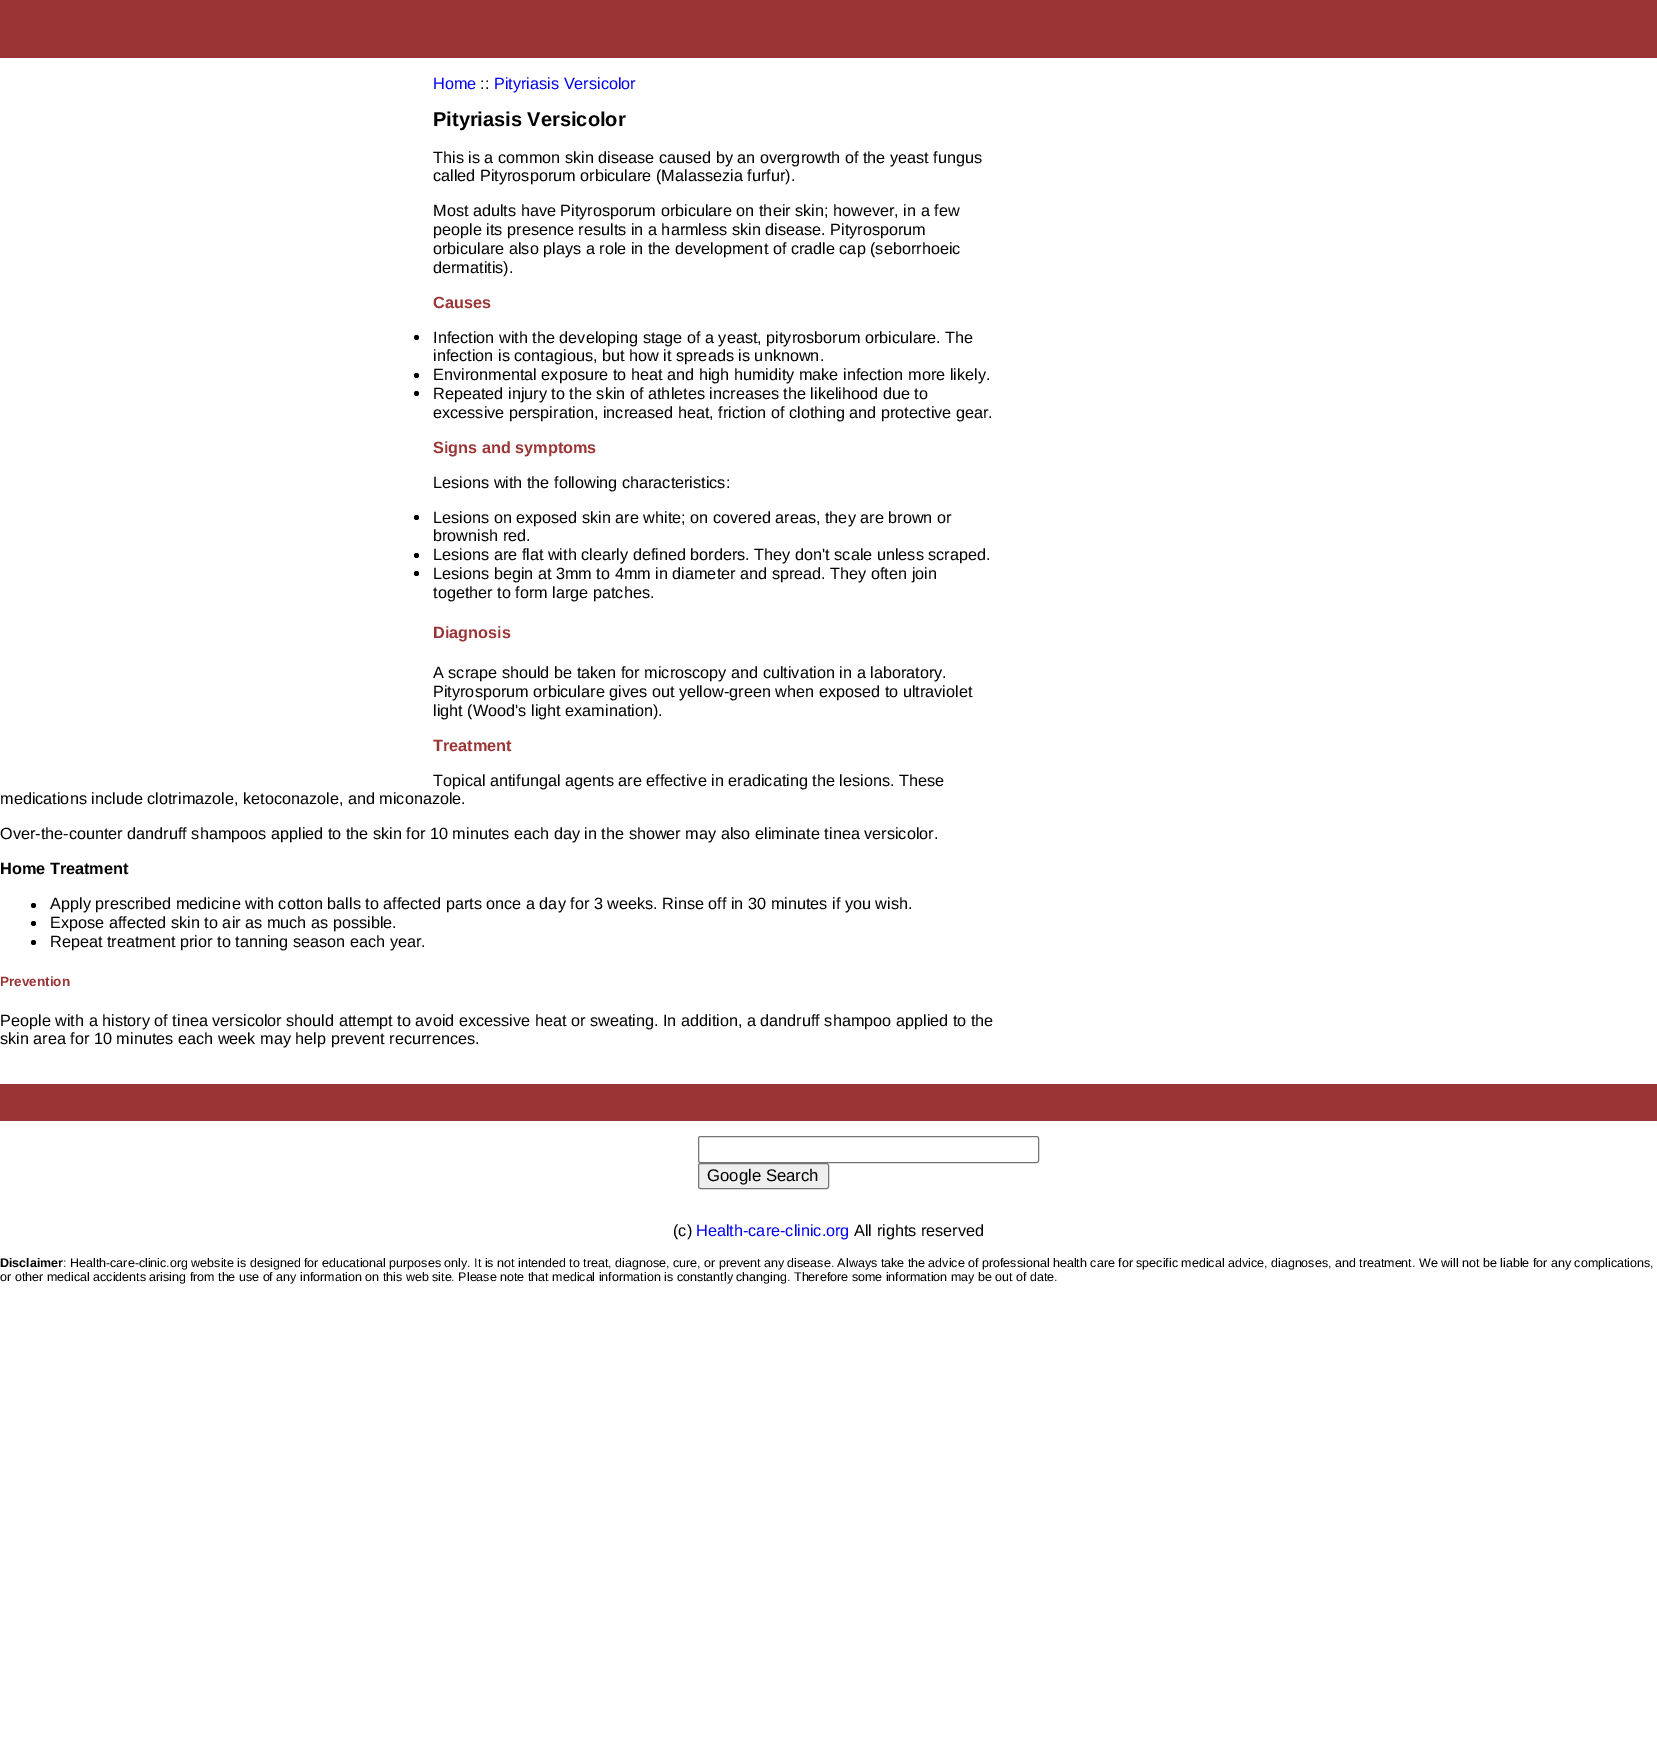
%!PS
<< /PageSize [1657 1743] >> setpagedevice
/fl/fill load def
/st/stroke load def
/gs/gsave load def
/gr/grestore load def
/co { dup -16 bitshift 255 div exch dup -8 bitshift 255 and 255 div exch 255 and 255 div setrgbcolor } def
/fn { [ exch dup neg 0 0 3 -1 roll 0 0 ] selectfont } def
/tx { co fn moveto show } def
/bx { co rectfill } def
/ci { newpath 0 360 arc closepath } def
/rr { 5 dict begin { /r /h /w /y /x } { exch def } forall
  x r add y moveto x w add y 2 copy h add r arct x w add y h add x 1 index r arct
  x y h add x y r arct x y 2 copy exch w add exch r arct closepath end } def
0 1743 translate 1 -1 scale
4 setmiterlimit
0 0 1657 1743 16#FFFFFF bx
0 0 1657 58 16#9B3435 bx
16#000000 co
416.5 337.5 2.5 ci fl
416.5 375.5 2.5 ci fl
416.5 393.5 2.5 ci fl
416.5 517.5 2.5 ci fl
416.5 555.5 2.5 ci fl
416.5 573.5 2.5 ci fl
33.5 905.5 2.5 ci fl
33.5 923.5 2.5 ci fl
33.5 942.5 2.5 ci fl
0 1084 1657 37 16#9B3435 bx
16#767676 co
698.5 1136.5 340 26 2 rr st
16#EFEFEF co
698.5 1163.5 130 25 2 rr gs fl gr
16#767676 co
st
(Home) 433 89 /LiberationSans-Regular 16.25 16#0000EE tx
(::) 480 89 /LiberationSans-Regular 16.25 16#000000 tx
(Pityriasis Versicolor) 494 89 /LiberationSans-Regular 16.25 16#0000EE tx
(Pityriasis Versicolor) 433 126 /LiberationSans-Bold 20 16#000000 tx
(This is a common skin disease caused by an overgrowth of the yeast fungus) 433 163 /LiberationSans-Regular 16.25 16#000000 tx
(called Pityrosporum orbiculare \(Malassezia furfur\).) 433 181 /LiberationSans-Regular 16.25 16#000000 tx
(Most adults have Pityrosporum orbiculare on their skin; however, in a few) 433 216 /LiberationSans-Regular 16.25 16#000000 tx
(people its presence results in a harmless skin disease. Pityrosporum) 433 235 /LiberationSans-Regular 16.25 16#000000 tx
(orbiculare also plays a role in the development of cradle cap \(seborrhoeic) 433 254 /LiberationSans-Regular 16.25 16#000000 tx
(dermatitis\).) 433 273 /LiberationSans-Regular 16.25 16#000000 tx
(Causes) 433 308 /LiberationSans-Bold 16.25 16#9B3435 tx
(Infection with the developing stage of a yeast, pityrosborum orbiculare. The) 433 343 /LiberationSans-Regular 16.25 16#000000 tx
(infection is contagious, but how it spreads is unknown.) 433 361 /LiberationSans-Regular 16.25 16#000000 tx
(Environmental exposure to heat and high humidity make infection more likely.) 433 380 /LiberationSans-Regular 16.25 16#000000 tx
(Repeated injury to the skin of athletes increases the likelihood due to) 433 399 /LiberationSans-Regular 16.25 16#000000 tx
(excessive perspiration, increased heat, friction of clothing and protective gear.) 433 418 /LiberationSans-Regular 16.25 16#000000 tx
(Signs and symptoms) 433 453 /LiberationSans-Bold 16.25 16#9B3435 tx
(Lesions with the following characteristics:) 433 488 /LiberationSans-Regular 16.25 16#000000 tx
(Lesions on exposed skin are white; on covered areas, they are brown or) 433 523 /LiberationSans-Regular 16.25 16#000000 tx
(brownish red.) 433 541 /LiberationSans-Regular 16.25 16#000000 tx
(Lesions are flat with clearly defined borders. They don't scale unless scraped.) 433 560 /LiberationSans-Regular 16.25 16#000000 tx
(Lesions begin at 3mm to 4mm in diameter and spread. They often join) 433 579 /LiberationSans-Regular 16.25 16#000000 tx
(together to form large patches.) 433 598 /LiberationSans-Regular 16.25 16#000000 tx
(Diagnosis) 433 638 /LiberationSans-Bold 16.25 16#9B3435 tx
(A scrape should be taken for microscopy and cultivation in a laboratory.) 433 678 /LiberationSans-Regular 16.25 16#000000 tx
(Pityrosporum orbiculare gives out yellow-green when exposed to ultraviolet) 433 697 /LiberationSans-Regular 16.25 16#000000 tx
(light \(Wood's light examination\).) 433 716 /LiberationSans-Regular 16.25 16#000000 tx
(Treatment) 433 751 /LiberationSans-Bold 16.25 16#9B3435 tx
(Topical antifungal agents are effective in eradicating the lesions. These) 433 786 /LiberationSans-Regular 16.25 16#000000 tx
(medications include clotrimazole, ketoconazole, and miconazole.) 0 804 /LiberationSans-Regular 16.25 16#000000 tx
(Over-the-counter dandruff shampoos applied to the skin for 10 minutes each day in the shower may also eliminate tinea versicolor.) 0 839 /LiberationSans-Regular 16.25 16#000000 tx
(Home Treatment) 0 874 /LiberationSans-Bold 16.25 16#000000 tx
(Apply prescribed medicine with cotton balls to affected parts once a day for 3 weeks. Rinse off in 30 minutes if you wish.) 50 909 /LiberationSans-Regular 16.25 16#000000 tx
(Expose affected skin to air as much as possible.) 50 928 /LiberationSans-Regular 16.25 16#000000 tx
(Repeat treatment prior to tanning season each year.) 50 947 /LiberationSans-Regular 16.25 16#000000 tx
(Prevention) 0 986 /LiberationSans-Bold 13.5 16#9B3435 tx
(People with a history of tinea versicolor should attempt to avoid excessive heat or sweating. In addition, a dandruff shampoo applied to the) 0 1026 /LiberationSans-Regular 16.25 16#000000 tx
(skin area for 10 minutes each week may help prevent recurrences.) 0 1044 /LiberationSans-Regular 16.25 16#000000 tx
(Google Search) 707 1181 /LiberationSans-Regular 16.75 16#000000 tx
(\(c\)) 673 1236 /LiberationSans-Regular 16.25 16#000000 tx
(Health-care-clinic.org) 696 1236 /LiberationSans-Regular 16.25 16#0000EE tx
(All rights reserved) 854 1236 /LiberationSans-Regular 16.25 16#000000 tx
(Disclaimer) 0 1267 /LiberationSans-Bold 12.5 16#000000 tx
(: Health-care-clinic.org website is designed for educational purposes only. It is not intended to treat, diagnose, cure, or prevent any disease. Always take the advice of professional health care for specific medical advice, diagnoses, and treatment. We will not be liable for any complications,) 63 1267 /LiberationSans-Regular 12.5 16#000000 tx
(or other medical accidents arising from the use of any information on this web site. Please note that medical information is constantly changing. Therefore some information may be out of date.) 0 1281 /LiberationSans-Regular 12.5 16#000000 tx
showpage
